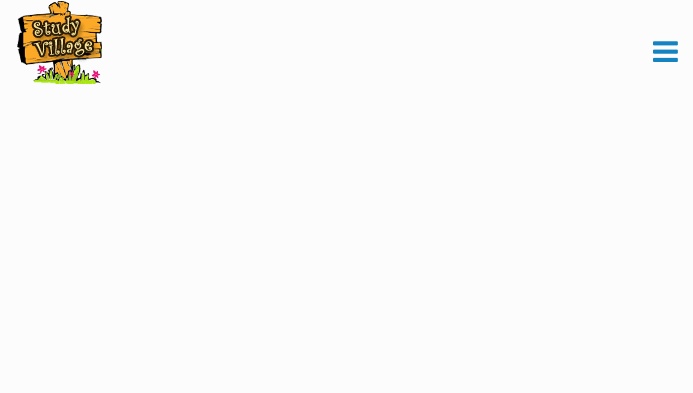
%!PS
<< /PageSize [693 393] >> setpagedevice
/co { dup -16 bitshift 255 div exch dup -8 bitshift 255 and 255 div exch 255 and 255 div setrgbcolor } def
/bx { co rectfill } def
/im { 5 dict begin { /h /w /y /x /name } { exch def } forall
  gsave x y translate w h scale
  w h 8 [w 0 0 h 0 0] name (r) file false 3 colorimage grestore end } def
0 393 translate 1 -1 scale
4 setmiterlimit
0 0 693 393 16#FCFCFC bx
(media/1.raw) 17 1 85 83 im
(media/2.raw) 653 41 25 21 im
showpage
